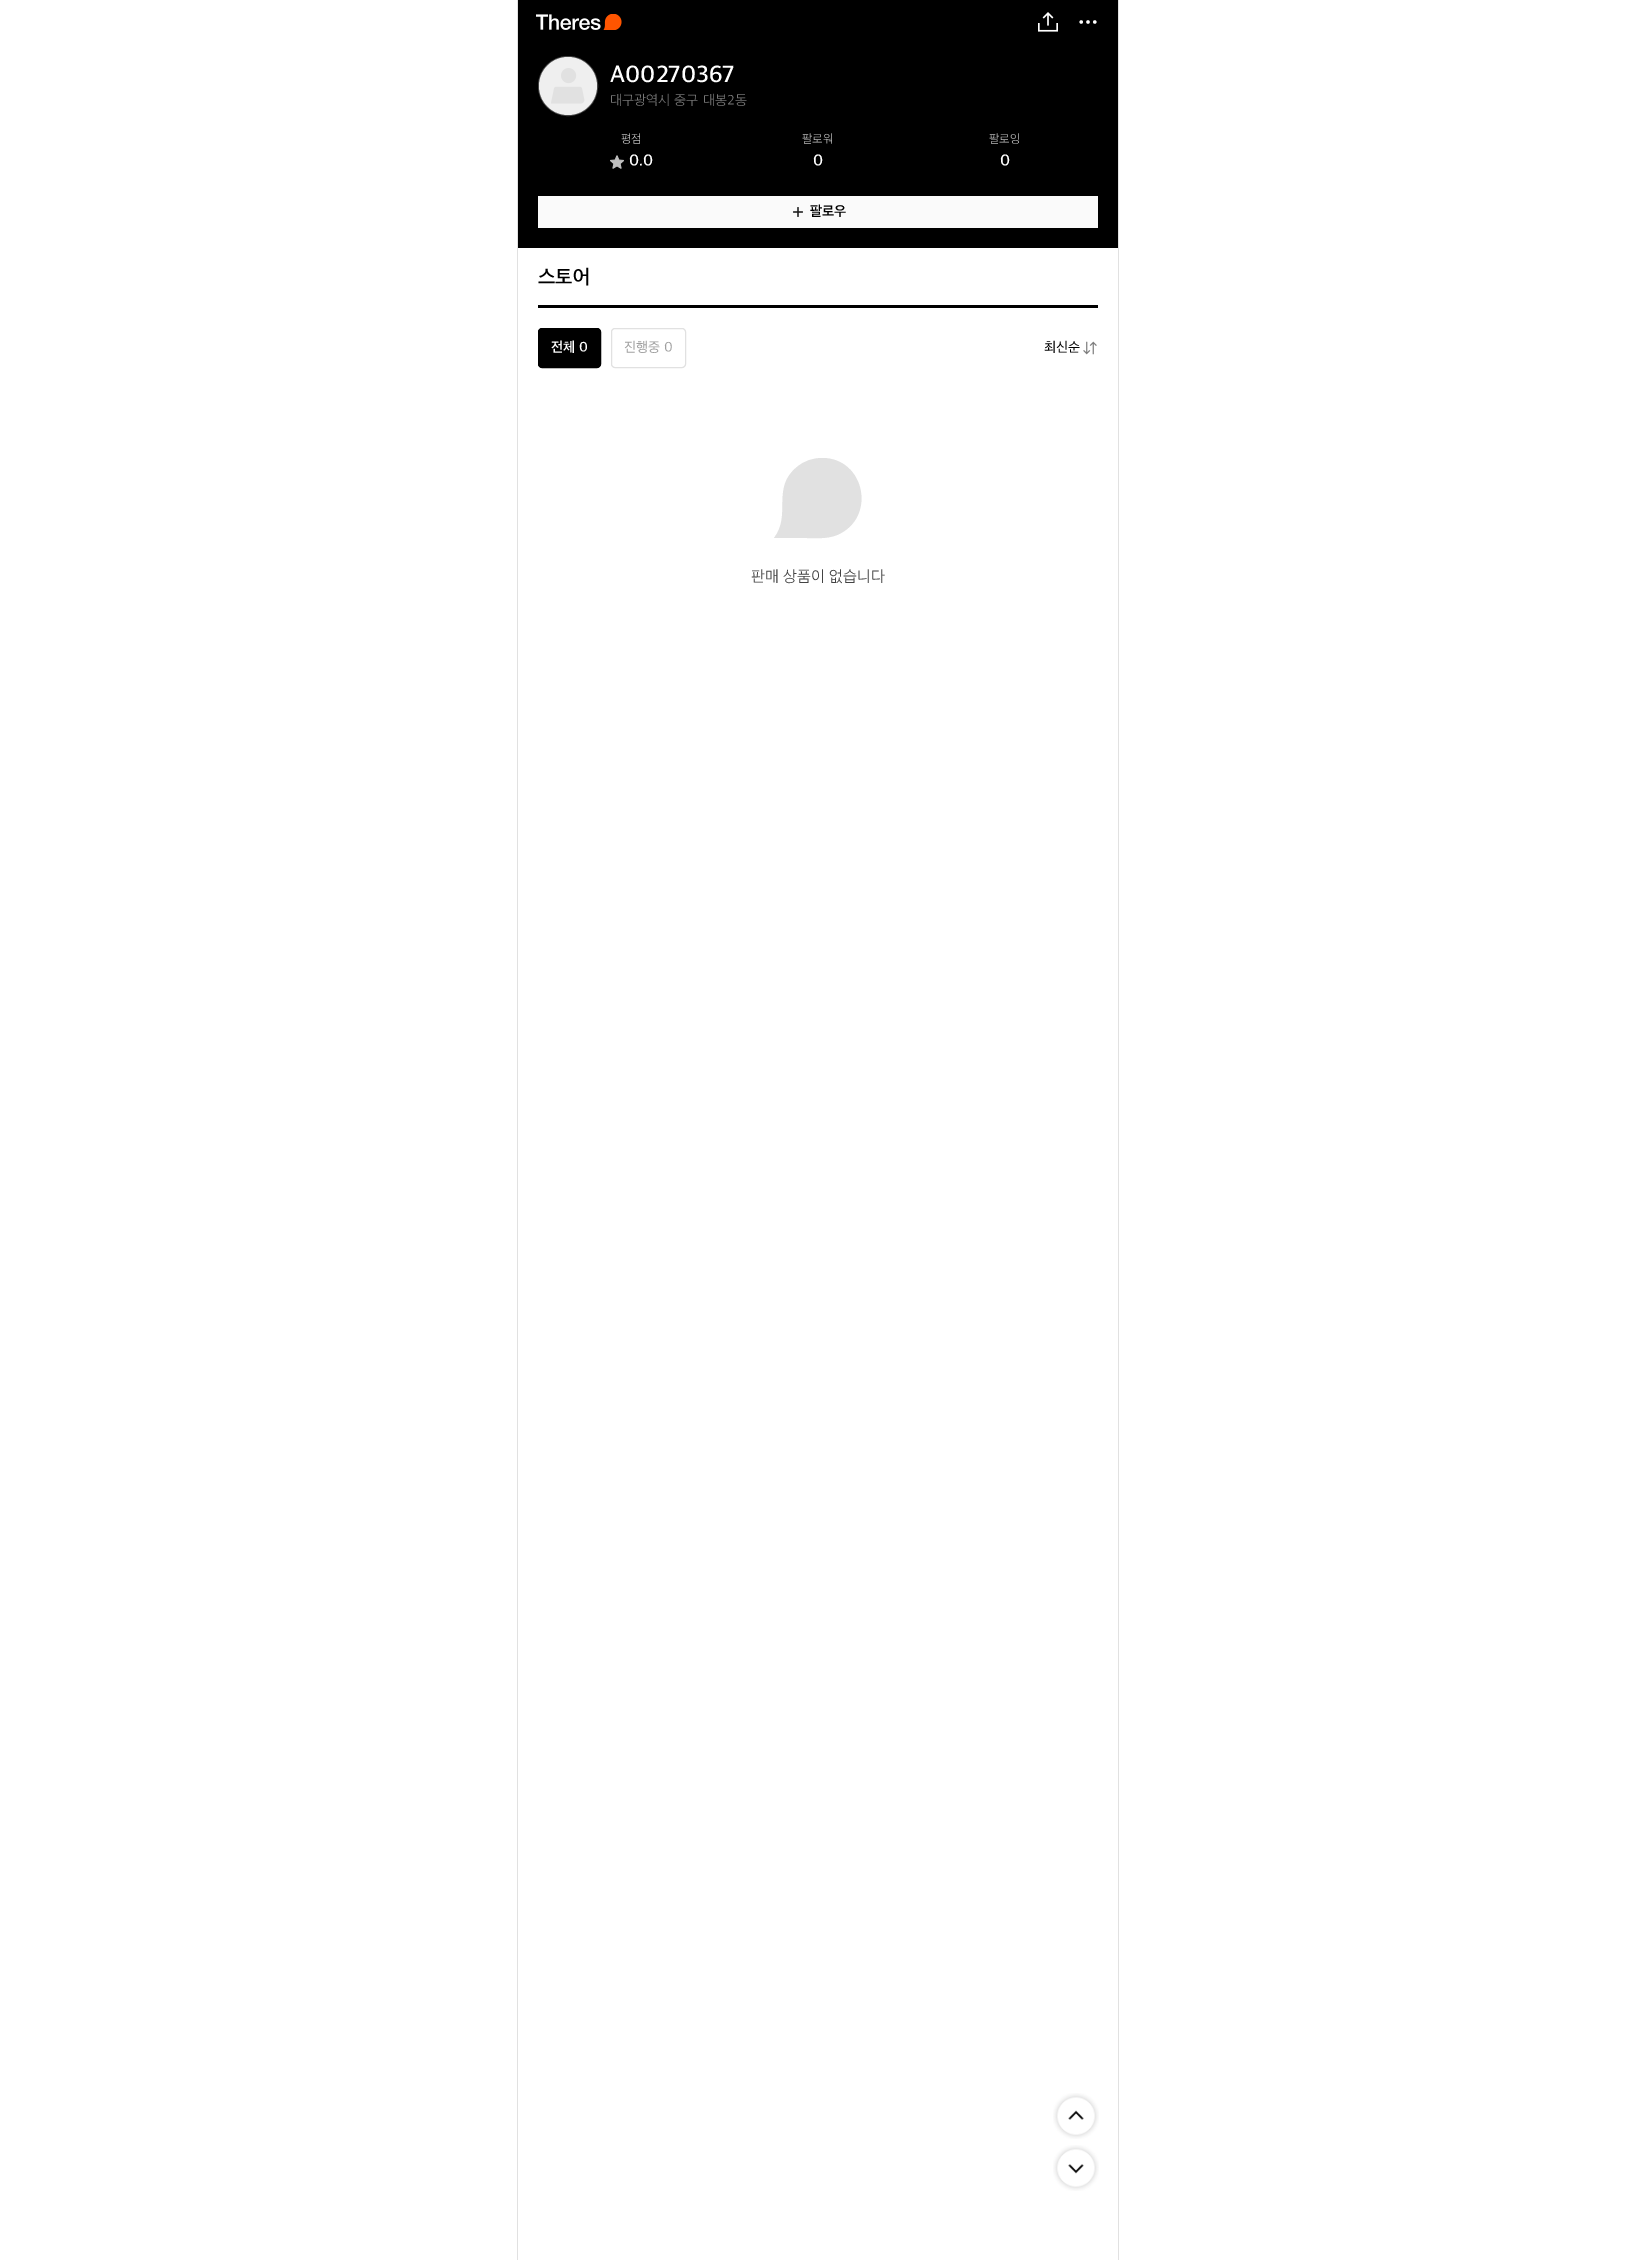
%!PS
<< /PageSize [1636 2260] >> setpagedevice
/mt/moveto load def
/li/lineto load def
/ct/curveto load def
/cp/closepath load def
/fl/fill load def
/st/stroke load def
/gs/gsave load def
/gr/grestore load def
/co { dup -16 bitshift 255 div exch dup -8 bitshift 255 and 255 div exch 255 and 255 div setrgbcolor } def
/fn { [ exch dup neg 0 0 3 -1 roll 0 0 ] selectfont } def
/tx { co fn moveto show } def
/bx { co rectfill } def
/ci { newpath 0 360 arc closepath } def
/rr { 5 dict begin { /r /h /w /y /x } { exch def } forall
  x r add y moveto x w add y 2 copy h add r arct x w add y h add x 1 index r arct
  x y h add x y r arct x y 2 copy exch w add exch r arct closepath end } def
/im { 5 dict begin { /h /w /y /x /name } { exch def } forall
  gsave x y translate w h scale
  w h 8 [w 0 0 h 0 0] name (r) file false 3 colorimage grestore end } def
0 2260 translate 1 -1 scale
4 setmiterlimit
0 0 1636 2260 16#FFFFFF bx
517 0 1 2260 16#E1E1E1 bx
518 0 600 248 16#000000 bx
(media/1.raw) 536 14 86 16 im
(media/2.raw) 1038 12 20 20 im
16#FFFFFF co
1081.2 22 1.7 ci fl
1088 22 1.7 ci fl
1094.8 22 1.7 ci fl
16#434343 co
568 86 29.5 ci st
16#EFEFEF co
568 86 29 ci fl
(media/3.raw) 551 68 34 36 im
(media/4.raw) 610 155 14 14 im
538 196 560 32 16#FAFAFA bx
(media/5.raw) 793 207 10 10 im
538 305 560 3 16#000000 bx
538.5 328.5 62 39 3.5 rr gs fl gr
st
16#E1E1E1 co
611.5 328.5 74 39 3.5 rr st
(media/6.raw) 1083 341 14 14 im
822 458 mt 813 458 804 461 797 467 ct 771 488 792 515 774 538 ct 806 538 li 817 538 827 539 837 535 ct 877 518 865 458 822 458 ct cp fl
1118 0 1 2260 16#E1E1E1 bx
(media/7.raw) 1053 2093 46 46 im
(media/8.raw) 1053 2145 46 46 im
(A00270367) 610 83 /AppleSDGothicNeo-SemiBold 24 16#FFFFFF tx
(대구광역시) 610 105 /AppleSDGothicNeo-Light 14 16#767676 tx
(중구) 674 105 /AppleSDGothicNeo-Light 14 16#767676 tx
(대봉2동) 703 105 /AppleSDGothicNeo-Light 14 16#767676 tx
(평점) 621 143 /AppleSDGothicNeo-Light 12 16#BEBEBE tx
(0.0) 629 166 /AppleSDGothicNeo-SemiBold 16 16#FFFFFF tx
(팔로워) 802 143 /AppleSDGothicNeo-Light 12 16#BEBEBE tx
(0) 813 166 /AppleSDGothicNeo-SemiBold 16 16#FFFFFF tx
(팔로잉) 989 143 /AppleSDGothicNeo-Light 12 16#BEBEBE tx
(0) 1000 166 /AppleSDGothicNeo-SemiBold 16 16#FFFFFF tx
(팔로우) 810 216 /AppleSDGothicNeo-SemiBold 14 16#000000 tx
(스토어) 538 284 /AppleSDGothicNeo-SemiBold 20 16#000000 tx
(전체) 551 352 /AppleSDGothicNeo-SemiBold 14 16#FFFFFF tx
(0) 579 352 /AppleSDGothicNeo-SemiBold 14 16#FFFFFF tx
(진행중) 624 352 /AppleSDGothicNeo-Regular 14 16#9F9F9F tx
(0) 664 352 /AppleSDGothicNeo-Regular 14 16#9F9F9F tx
(최신순) 1044 352 /AppleSDGothicNeo-Regular 14 16#000000 tx
(판매) 751 582 /AppleSDGothicNeo-Light 16 16#434343 tx
(상품이) 783 582 /AppleSDGothicNeo-Light 16 16#434343 tx
(없습니다) 829 582 /AppleSDGothicNeo-Light 16 16#434343 tx
showpage
